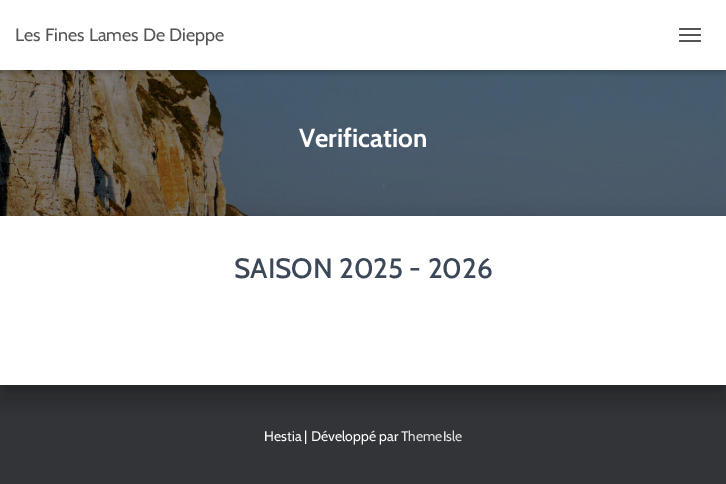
%!PS
<< /PageSize [726 484] /PageUsesTransparency true >> setpagedevice
/fl/fill load def
/co { dup -16 bitshift 255 div exch dup -8 bitshift 255 and 255 div exch 255 and 255 div setrgbcolor } def
/fn { [ exch dup neg 0 0 3 -1 roll 0 0 ] selectfont } def
/tx { co fn moveto show } def
/bx { co rectfill } def
/al { dup .setfillconstantalpha .setstrokeconstantalpha } def
/rr { 5 dict begin { /r /h /w /y /x } { exch def } forall
  x r add y moveto x w add y 2 copy h add r arct x w add y h add x 1 index r arct
  x y h add x y r arct x y 2 copy exch w add exch r arct closepath end } def
/sh { 12 dict begin { /a /b /q /h /w /y /x } { exch def } forall gsave /was 0 def
  9 -2 -9 { dup b mul 4 div /e exch def 1 sub .425 mul 2.718 exch exp 1 add a .99 .min exch div /now exch def
    1 1 now sub 1 was sub div sub al /was now def
    w h .min e 2 mul add 0 gt { x e sub y e sub w e 2 mul add h e 2 mul add
      q e add b .6 mul add w h .min 2 div e add .min 0 .max rr fill } if } for grestore end } def
/im { 5 dict begin { /h /w /y /x /name } { exch def } forall
  gsave x y translate w h scale
  w h 8 [w 0 0 h 0 0] name (r) file false 3 colorimage grestore end } def
0 .pushpdf14devicefilter
0 484 translate 1 -1 scale
4 setmiterlimit
0 0 726 484 16#FFFFFF bx
(media/1.raw) 0 70 726 146 im
16#000000 co
2 6 722 66 0 2.5 .1 sh
0 1 726 70 0 5 .12 sh
6 7 714 58 0 5 .42 sh
0 0 726 70 16#FFFFFF bx
16#555555 co
679 28 22 2 1 rr fl
679 34 22 2 1 rr fl
679 40 22 2 1 rr fl
0 385 726 99 16#323437 bx
16#000000 co
5 229 716 159 0 5 .2 sh
-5 217 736 179 0 15 .12 sh
-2 230 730 173 0 12 .14 sh
0 216 726 169 16#FFFFFF bx
(Les Fines Lames De Dieppe) 15 41 /Cabin-Regular 18 16#555555 tx
(Verification) 299 147 /Cabin-Bold 26 16#FFFFFF tx
(SAISON 2025 - 2026) 234 278 /Cabin-Medium 28 16#3C4858 tx
(Hestia | Développé par) 264 441 /Cabin-Regular 14 16#FFFFFF tx
(ThemeIsle) 401 441 /Cabin-Regular 14 16#E2E3E3 tx
.poppdf14devicefilter showpage
